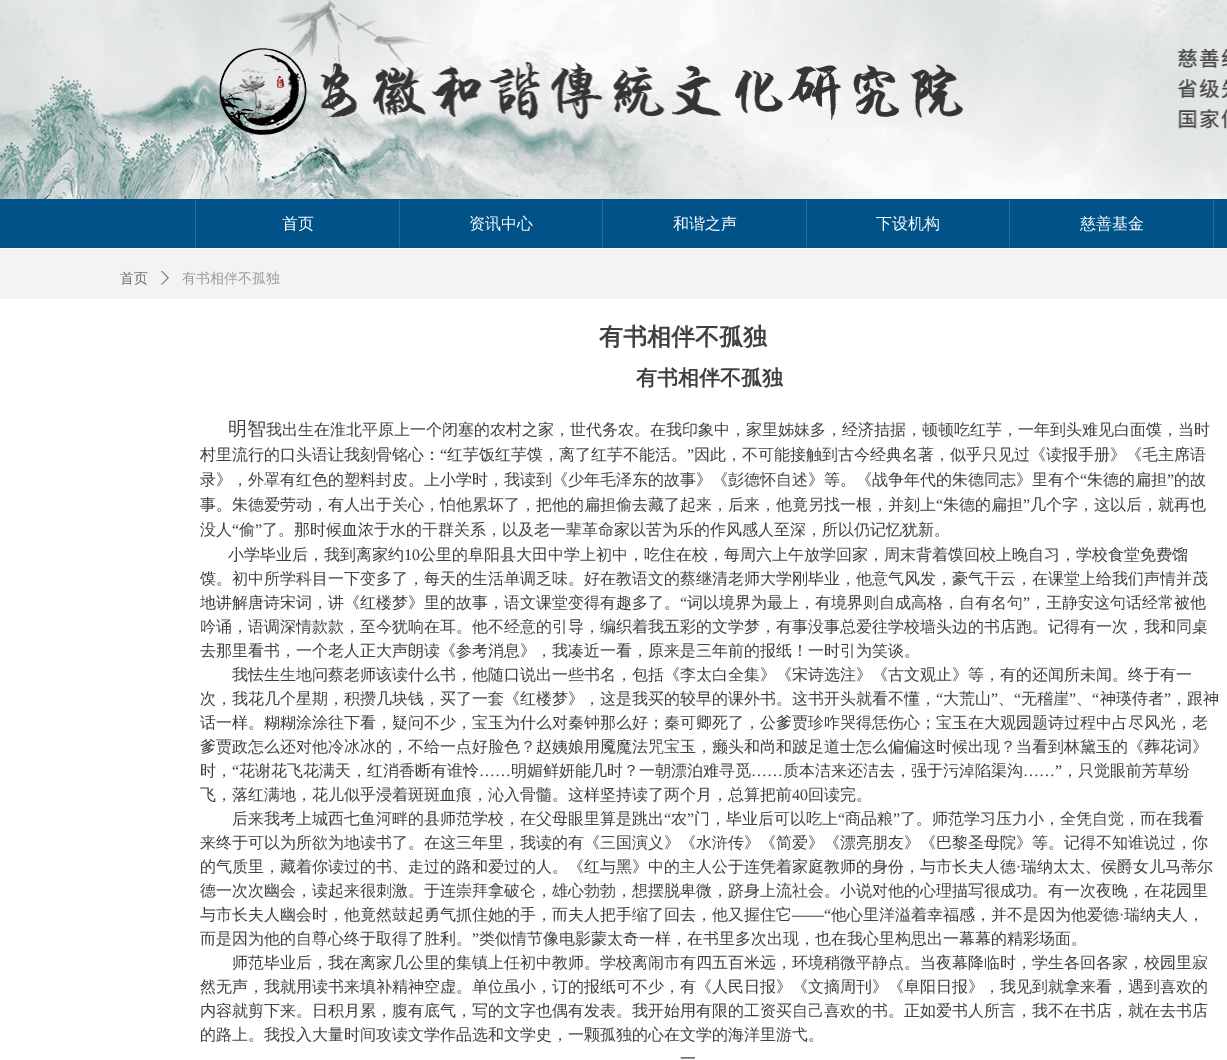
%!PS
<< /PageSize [1227 1060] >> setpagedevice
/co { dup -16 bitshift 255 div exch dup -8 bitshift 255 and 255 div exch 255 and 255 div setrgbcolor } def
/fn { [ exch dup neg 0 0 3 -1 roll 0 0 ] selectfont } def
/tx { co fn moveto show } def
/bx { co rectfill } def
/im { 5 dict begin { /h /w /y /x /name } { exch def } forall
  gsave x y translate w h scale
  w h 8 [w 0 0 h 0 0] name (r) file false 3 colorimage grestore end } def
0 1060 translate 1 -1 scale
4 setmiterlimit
0 0 1227 1060 16#FFFFFF bx
(media/1.raw) 0 0 1227 199 im
(media/2.raw) 219 48 1008 91 im
0 199 1227 49 16#015289 bx
195 200 1 47 16#226EA1 bx
399 200 1 47 16#226EA1 bx
602 200 1 47 16#226EA1 bx
806 200 1 47 16#226EA1 bx
1009 200 1 47 16#226EA1 bx
1213 200 1 47 16#226EA1 bx
0 249 1227 50 16#F3F3F3 bx
(media/3.raw) 161 270 8 15 im
(首页) 282 229 /WenQuanYiZenHei-Medium 16 16#FFFFFF tx
(资讯中心) 469 229 /WenQuanYiZenHei-Medium 16 16#FFFFFF tx
(和谐之声) 673 229 /WenQuanYiZenHei-Medium 16 16#FFFFFF tx
(下设机构) 876 229 /WenQuanYiZenHei-Medium 16 16#FFFFFF tx
(慈善基金) 1080 229 /WenQuanYiZenHei-Medium 16 16#FFFFFF tx
(首页) 120 283 /WenQuanYiZenHei-Medium 14 16#666666 tx
(有书相伴不孤独) 182 283 /WenQuanYiZenHei-Medium 14 16#999999 tx
(有书相伴不孤独) 599 345 /WenQuanYiZenHei-Bold 24 16#404040 tx
(有书相伴不孤独) 636 385 /WenQuanYiZenHei-Bold 21 16#404040 tx
(明智) 228 435 /WenQuanYiZenHei-Medium 19 16#404040 tx
(我出生在淮北平原上一个闭塞的农村之家，世代务农。在我印象中，家里姊妹多，经济拮据，顿顿吃红芋，一年到头难见白面馍，当时) 266 435 /WenQuanYiZenHei-Medium 16 16#404040 tx
(村里流行的口头语让我刻骨铭心：) 200 460 /WenQuanYiZenHei-Medium 16 16#404040 tx
(“) 440 460 /LiberationSerif-Regular 16 16#404040 tx
(红芋饭红芋馍，离了红芋不能活。) 447 460 /WenQuanYiZenHei-Medium 16 16#404040 tx
(”) 687 460 /LiberationSerif-Regular 16 16#404040 tx
(因此，不可能接触到古今经典名著，似乎只见过《读报手册》《毛主席语) 694 460 /WenQuanYiZenHei-Medium 16 16#404040 tx
(录》，外罩有红色的塑料封皮。上小学时，我读到《少年毛泽东的故事》《彭德怀自述》等。《战争年代的朱德同志》里有个) 200 485 /WenQuanYiZenHei-Medium 16 16#404040 tx
(“) 1080 485 /LiberationSerif-Regular 16 16#404040 tx
(朱德的扁担) 1087 485 /WenQuanYiZenHei-Medium 16 16#404040 tx
(”) 1167 485 /LiberationSerif-Regular 16 16#404040 tx
(的故) 1174 485 /WenQuanYiZenHei-Medium 16 16#404040 tx
(事。朱德爱劳动，有人出于关心，怕他累坏了，把他的扁担偷去藏了起来，后来，他竟另找一根，并刻上) 200 510 /WenQuanYiZenHei-Medium 16 16#404040 tx
(“) 936 510 /LiberationSerif-Regular 16 16#404040 tx
(朱德的扁担) 943 510 /WenQuanYiZenHei-Medium 16 16#404040 tx
(”) 1023 510 /LiberationSerif-Regular 16 16#404040 tx
(几个字，这以后，就再也) 1030 510 /WenQuanYiZenHei-Medium 16 16#404040 tx
(没人) 200 535 /WenQuanYiZenHei-Medium 16 16#404040 tx
(“) 232 535 /LiberationSerif-Regular 16 16#404040 tx
(偷) 239 535 /WenQuanYiZenHei-Medium 16 16#404040 tx
(”) 255 535 /LiberationSerif-Regular 16 16#404040 tx
(了。那时候血浓于水的干群关系，以及老一辈革命家以苦为乐的作风感人至深，所以仍记忆犹新。) 262 535 /WenQuanYiZenHei-Medium 16 16#404040 tx
(小学毕业后，我到离家约) 228 560 /WenQuanYiZenHei-Medium 16 16#404040 tx
(10) 404 560 /LiberationSerif-Regular 16 16#404040 tx
(公里的阜阳县大田中学上初中，吃住在校，每周六上午放学回家，周末背着馍回校上晚自习，学校食堂免费馏) 420 560 /WenQuanYiZenHei-Medium 16 16#404040 tx
(馍。初中所学科目一下变多了，每天的生活单调乏味。好在教语文的蔡继清老师大学刚毕业，他意气风发，豪气干云，在课堂上给我们声情并茂) 200 584 /WenQuanYiZenHei-Medium 16 16#404040 tx
(地讲解唐诗宋词，讲《红楼梦》里的故事，语文课堂变得有趣多了。) 200 608 /WenQuanYiZenHei-Medium 16 16#404040 tx
(“) 680 608 /LiberationSerif-Regular 16 16#404040 tx
(词以境界为最上，有境界则自成高格，自有名句) 687 608 /WenQuanYiZenHei-Medium 16 16#404040 tx
(”) 1023 608 /LiberationSerif-Regular 16 16#404040 tx
(，王静安这句话经常被他) 1030 608 /WenQuanYiZenHei-Medium 16 16#404040 tx
(吟诵，语调深情款款，至今犹响在耳。他不经意的引导，编织着我五彩的文学梦，有事没事总爱往学校墙头边的书店跑。记得有一次，我和同桌) 200 632 /WenQuanYiZenHei-Medium 16 16#404040 tx
(去那里看书，一个老人正大声朗读《参考消息》，我凑近一看，原来是三年前的报纸！一时引为笑谈。) 200 656 /WenQuanYiZenHei-Medium 16 16#404040 tx
(我怯生生地问蔡老师该读什么书，他随口说出一些书名，包括《李太白全集》《宋诗选注》《古文观止》等，有的还闻所未闻。终于有一) 232 680 /WenQuanYiZenHei-Medium 16 16#404040 tx
(次，我花几个星期，积攒几块钱，买了一套《红楼梦》，这是我买的较早的课外书。这书开头就看不懂，) 200 704 /WenQuanYiZenHei-Medium 16 16#404040 tx
(“) 936 704 /LiberationSerif-Regular 16 16#404040 tx
(大荒山) 943 704 /WenQuanYiZenHei-Medium 16 16#404040 tx
(”) 991 704 /LiberationSerif-Regular 16 16#404040 tx
(“) 1014 704 /LiberationSerif-Regular 16 16#404040 tx
(无稽崖) 1021 704 /WenQuanYiZenHei-Medium 16 16#404040 tx
(”) 1069 704 /LiberationSerif-Regular 16 16#404040 tx
(“) 1092 704 /LiberationSerif-Regular 16 16#404040 tx
(神瑛侍者) 1100 704 /WenQuanYiZenHei-Medium 16 16#404040 tx
(”) 1164 704 /LiberationSerif-Regular 16 16#404040 tx
(，跟神) 1171 704 /WenQuanYiZenHei-Medium 16 16#404040 tx
(、) 998 704 /WenQuanYiZenHei-Medium 16 16#404040 tx
(、) 1076 704 /WenQuanYiZenHei-Medium 16 16#404040 tx
(话一样。糊糊涂涂往下看，疑问不少，宝玉为什么对秦钟那么好；秦可卿死了，公爹贾珍咋哭得恁伤心；宝玉在大观园题诗过程中占尽风光，老) 200 728 /WenQuanYiZenHei-Medium 16 16#404040 tx
(爹贾政怎么还对他冷冰冰的，不给一点好脸色？赵姨娘用魇魔法咒宝玉，癞头和尚和跛足道士怎么偏偏这时候出现？当看到林黛玉的《葬花词》) 200 752 /WenQuanYiZenHei-Medium 16 16#404040 tx
(时，) 200 776 /WenQuanYiZenHei-Medium 16 16#404040 tx
(“) 232 776 /LiberationSerif-Regular 16 16#404040 tx
(花谢花飞花满天，红消香断有谁怜) 239 776 /WenQuanYiZenHei-Medium 16 16#404040 tx
(……) 479 776 /LiberationSerif-Regular 16 16#404040 tx
(明媚鲜妍能几时？一朝漂泊难寻觅) 511 776 /WenQuanYiZenHei-Medium 16 16#404040 tx
(……) 751 776 /LiberationSerif-Regular 16 16#404040 tx
(质本洁来还洁去，强于污淖陷渠沟) 783 776 /WenQuanYiZenHei-Medium 16 16#404040 tx
(……”) 1023 776 /LiberationSerif-Regular 16 16#404040 tx
(，只觉眼前芳草纷) 1062 776 /WenQuanYiZenHei-Medium 16 16#404040 tx
(飞，落红满地，花儿似乎浸着斑斑血痕，沁入骨髓。这样坚持读了两个月，总算把前) 200 800 /WenQuanYiZenHei-Medium 16 16#404040 tx
(40) 792 800 /LiberationSerif-Regular 16 16#404040 tx
(回读完。) 808 800 /WenQuanYiZenHei-Medium 16 16#404040 tx
(后来我考上城西七鱼河畔的县师范学校，在父母眼里算是跳出) 232 824 /WenQuanYiZenHei-Medium 16 16#404040 tx
(“) 664 824 /LiberationSerif-Regular 16 16#404040 tx
(农) 671 824 /WenQuanYiZenHei-Medium 16 16#404040 tx
(”) 687 824 /LiberationSerif-Regular 16 16#404040 tx
(门，毕业后可以吃上) 694 824 /WenQuanYiZenHei-Medium 16 16#404040 tx
(“) 838 824 /LiberationSerif-Regular 16 16#404040 tx
(商品粮) 845 824 /WenQuanYiZenHei-Medium 16 16#404040 tx
(”) 893 824 /LiberationSerif-Regular 16 16#404040 tx
(了。师范学习压力小，全凭自觉，而在我看) 900 824 /WenQuanYiZenHei-Medium 16 16#404040 tx
(来终于可以为所欲为地读书了。在这三年里，我读的有《三国演义》《水浒传》《简爱》《漂亮朋友》《巴黎圣母院》等。记得不知谁说过，你) 200 848 /WenQuanYiZenHei-Medium 16 16#404040 tx
(的气质里，藏着你读过的书、走过的路和爱过的人。《红与黑》中的主人公于连凭着家庭教师的身份，与市长夫人德) 200 872 /WenQuanYiZenHei-Medium 16 16#404040 tx
(·) 1016 872 /LiberationSerif-Regular 16 16#404040 tx
(瑞纳太太、侯爵女儿马蒂尔) 1021 872 /WenQuanYiZenHei-Medium 16 16#404040 tx
(德一次次幽会，读起来很刺激。于连崇拜拿破仑，雄心勃勃，想摆脱卑微，跻身上流社会。小说对他的心理描写很成功。有一次夜晚，在花园里) 200 896 /WenQuanYiZenHei-Medium 16 16#404040 tx
(与市长夫人幽会时，他竟然鼓起勇气抓住她的手，而夫人把手缩了回去，他又握住它) 200 920 /WenQuanYiZenHei-Medium 16 16#404040 tx
(——“) 792 920 /LiberationSerif-Regular 16 16#404040 tx
(他心里洋溢着幸福感，并不是因为他爱德) 831 920 /WenQuanYiZenHei-Medium 16 16#404040 tx
(·) 1119 920 /LiberationSerif-Regular 16 16#404040 tx
(瑞纳夫人，) 1124 920 /WenQuanYiZenHei-Medium 16 16#404040 tx
(而是因为他的自尊心终于取得了胜利。) 200 944 /WenQuanYiZenHei-Medium 16 16#404040 tx
(”) 472 944 /LiberationSerif-Regular 16 16#404040 tx
(类似情节像电影蒙太奇一样，在书里多次出现，也在我心里构思出一幕幕的精彩场面。) 479 944 /WenQuanYiZenHei-Medium 16 16#404040 tx
(师范毕业后，我在离家几公里的集镇上任初中教师。学校离闹市有四五百米远，环境稍微平静点。当夜幕降临时，学生各回各家，校园里寂) 232 968 /WenQuanYiZenHei-Medium 16 16#404040 tx
(然无声，我就用读书来填补精神空虚。单位虽小，订的报纸可不少，有《人民日报》《文摘周刊》《阜阳日报》，我见到就拿来看，遇到喜欢的) 200 992 /WenQuanYiZenHei-Medium 16 16#404040 tx
(内容就剪下来。日积月累，腹有底气，写的文字也偶有发表。我开始用有限的工资买自己喜欢的书。正如爱书人所言，我不在书店，就在去书店) 200 1016 /WenQuanYiZenHei-Medium 16 16#404040 tx
(的路上。我投入大量时间攻读文学作品选和文学史，一颗孤独的心在文学的海洋里游弋。) 200 1040 /WenQuanYiZenHei-Medium 16 16#404040 tx
(一) 680 1064 /WenQuanYiZenHei-Medium 16 16#404040 tx
showpage
